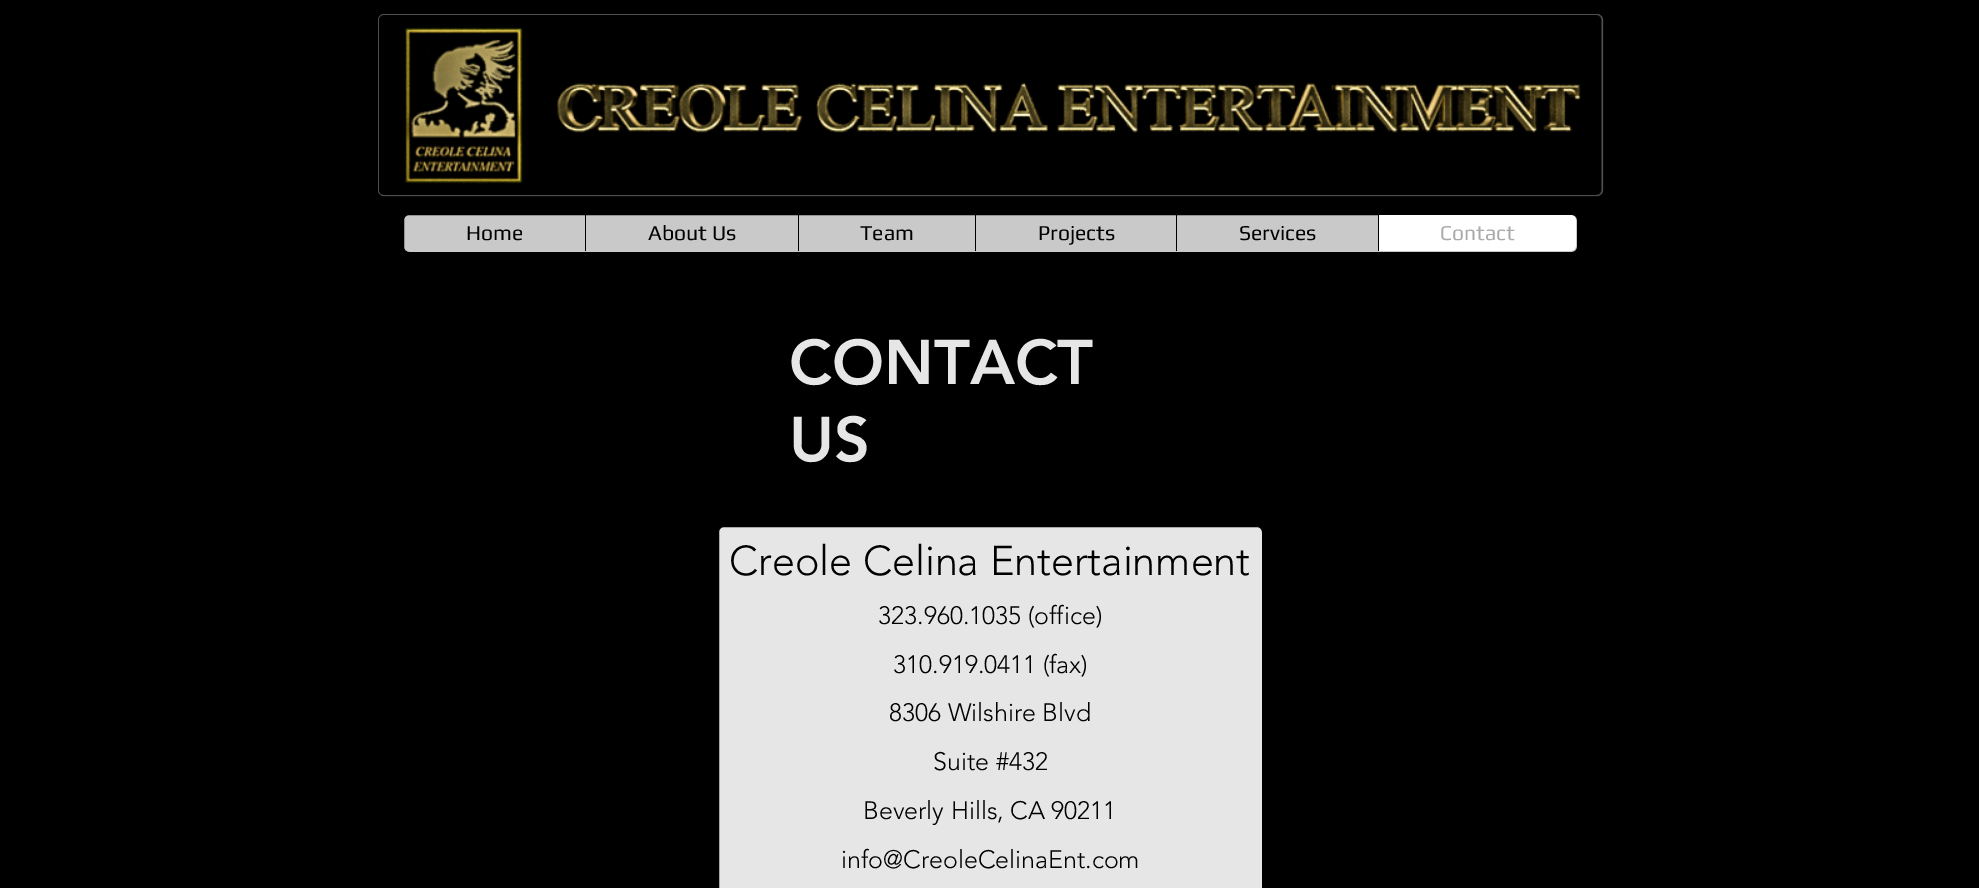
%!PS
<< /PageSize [1979 888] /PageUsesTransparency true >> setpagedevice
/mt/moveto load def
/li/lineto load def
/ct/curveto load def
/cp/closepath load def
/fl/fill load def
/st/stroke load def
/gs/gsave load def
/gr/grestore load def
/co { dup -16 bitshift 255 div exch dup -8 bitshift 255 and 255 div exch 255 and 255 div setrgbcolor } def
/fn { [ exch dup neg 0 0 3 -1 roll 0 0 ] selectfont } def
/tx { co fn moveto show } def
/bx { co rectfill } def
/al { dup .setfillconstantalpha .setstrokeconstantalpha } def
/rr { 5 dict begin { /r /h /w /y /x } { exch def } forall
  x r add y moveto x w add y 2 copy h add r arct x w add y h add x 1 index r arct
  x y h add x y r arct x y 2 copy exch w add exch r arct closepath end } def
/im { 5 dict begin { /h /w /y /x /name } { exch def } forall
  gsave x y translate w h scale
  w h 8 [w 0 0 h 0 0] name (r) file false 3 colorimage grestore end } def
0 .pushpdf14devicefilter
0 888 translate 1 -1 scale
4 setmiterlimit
0 0 1979 888 16#000000 bx
16#2B2B2B co
378 14 1225 182 6 rr fl
0.17 al
16#FFFFFF co
378.5 14.5 1224 181 5.5 rr st
1 al
(media/1.raw) 379 15 1222 180 im
16#C9C9C9 co
403.5 214.5 1174 38 5.5 rr gs fl gr
16#000000 co
st
585 215 1 36 16#000000 bx
798 215 1 36 16#000000 bx
975 215 1 36 16#000000 bx
1176 215 1 36 16#000000 bx
16#FFFFFF co
1378 215 mt 1570 215 li 1573.5 215 1576 217.5 1576 221 ct 1576 245 li 1576 248.5 1573.5 251 1570 251 ct 1378 251 li cp fl
1378 215 1 36 16#000000 bx
16#E6E6E6 co
718.5 526.5 544 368 5.5 rr gs fl gr
16#000000 co
st
(Home) 466 240 /Play-Regular 21.25 16#000000 tx
(About Us) 648 240 /Play-Regular 21.25 16#000000 tx
(Team) 860 240 /Play-Regular 21.25 16#000000 tx
(Projects) 1038 240 /Play-Regular 21.25 16#000000 tx
(Services) 1239 240 /Play-Regular 21.25 16#000000 tx
(Contact) 1440 240 /Play-Regular 21.25 16#AAAAAA tx
(CONTACT) 789 384 /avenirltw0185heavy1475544-Black 62.5 16#E6E6E6 tx
(US) 789 461 /avenirltw0185heavy1475544-Black 62.5 16#E6E6E6 tx
(Creole Celina Entertainment) 729 575 /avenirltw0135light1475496-Light 41.25 16#000000 tx
(323.960.1035 \(office\)) 878 624 /avenirltw0135light1475496-Light 25 16#000000 tx
(310.919.0411 \(fax\)) 893 673 /avenirltw0135light1475496-Light 25 16#000000 tx
(8306 Wilshire Blvd) 889 721 /avenirltw0135light1475496-Light 25 16#000000 tx
(Suite #432) 933 770 /avenirltw0135light1475496-Light 25 16#000000 tx
(Beverly Hills, CA 90211) 863 819 /avenirltw0135light1475496-Light 25 16#000000 tx
(info@CreoleCelinaEnt.com) 841 868 /avenirltw0135light1475496-Light 25 16#000000 tx
.poppdf14devicefilter showpage
